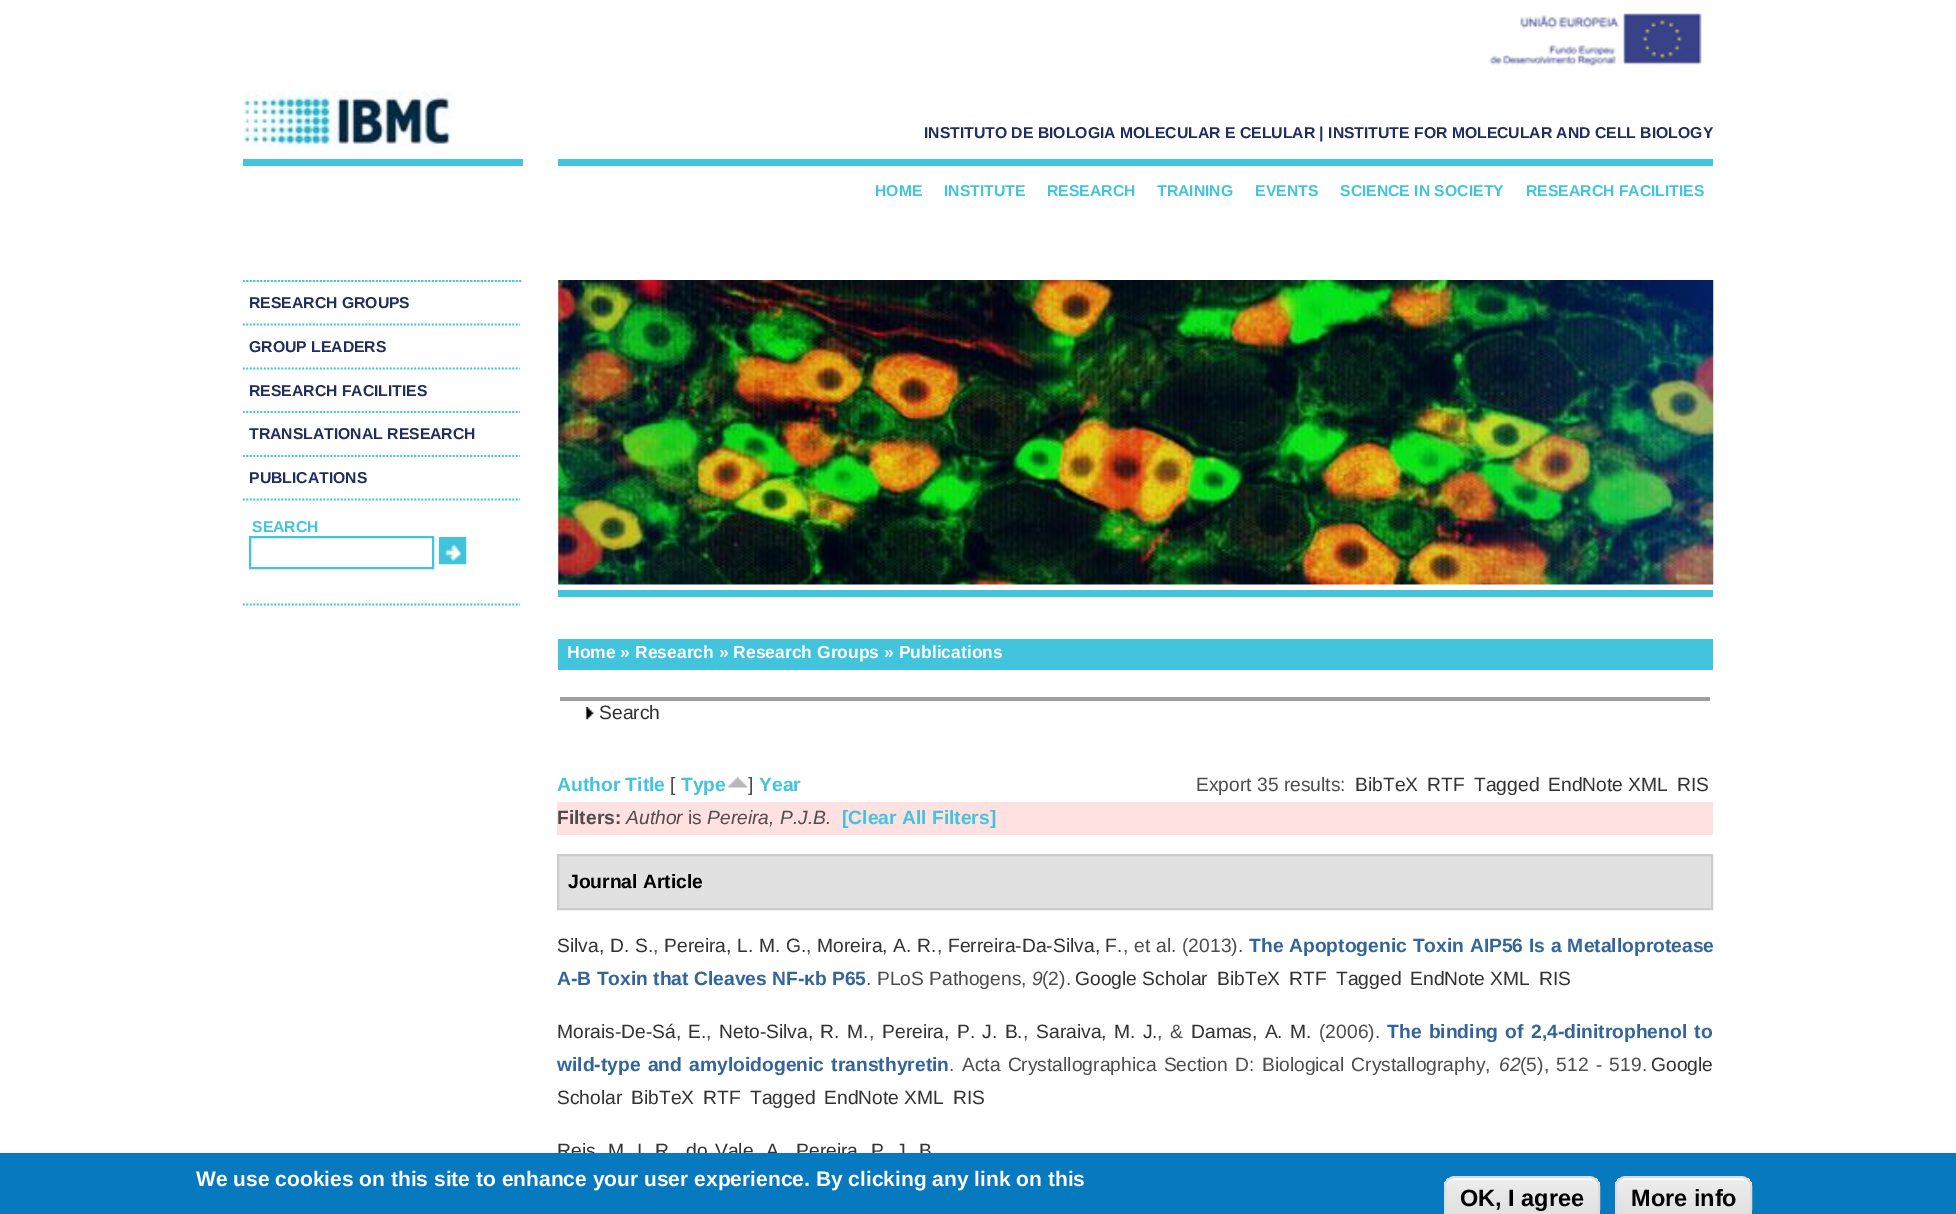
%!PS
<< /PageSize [1956 1214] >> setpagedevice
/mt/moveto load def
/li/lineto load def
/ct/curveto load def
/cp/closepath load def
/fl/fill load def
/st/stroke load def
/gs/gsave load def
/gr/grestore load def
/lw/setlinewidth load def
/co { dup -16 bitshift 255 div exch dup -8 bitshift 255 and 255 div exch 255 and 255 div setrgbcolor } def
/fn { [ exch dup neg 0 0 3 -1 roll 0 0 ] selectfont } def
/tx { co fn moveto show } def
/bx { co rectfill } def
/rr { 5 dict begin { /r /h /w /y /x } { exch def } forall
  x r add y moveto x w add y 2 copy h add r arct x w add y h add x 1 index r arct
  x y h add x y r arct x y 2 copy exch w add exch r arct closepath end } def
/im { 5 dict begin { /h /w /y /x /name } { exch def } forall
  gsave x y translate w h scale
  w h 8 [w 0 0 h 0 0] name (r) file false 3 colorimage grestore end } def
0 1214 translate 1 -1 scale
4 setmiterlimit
0 0 1956 1214 16#FFFFFF bx
(media/1.raw) 1488 13 214 54 im
243 159 280 7 16#41C4DC bx
(media/2.raw) 243 90 210 58 im
558 159 1155 7 16#41C4DC bx
1.8 lw
[1.75 1.75] 0 setdash
243 281 mt 523 281 li st
243 281 mt 520 281 li st
243 324.5 mt 520 324.5 li st
243 368.5 mt 520 368.5 li st
243 412 mt 520 412 li st
243 456 mt 520 456 li st
243 499.5 mt 520 499.5 li st
243 604.5 mt 520 604.5 li st
2 lw
[] 0 setdash
250 537 183 31 rectstroke
(media/3.raw) 441 539 23 23 im
440 538 25 25 rectstroke
558 590 1155 7 16#41C4DC bx
(media/4.raw) 558 280 1156 305 im
558 639 1155 31 16#41C4DC bx
560 697 1150 4 16#9F9F9F bx
(media/5.raw) 585 707 9 13 im
(media/6.raw) 727 776 21 12 im
557 802 1156 33 16#FFE1E1 bx
16#E1E1E1 co
558 855 mt 1712 855 li 1712 909 li 558 909 li cp gs fl gr
16#CCCCCC co
st
(INSTITUTO DE BIOLOGIA MOLECULAR E CELULAR | INSTITUTE FOR MOLECULAR AND CELL BIOLOGY) 924 138 /LiberationSans-Bold 15.75 16#202D5D tx
(HOME) 875 196 /LiberationSans-Bold 15.75 16#41C4DC tx
(INSTITUTE) 944 196 /LiberationSans-Bold 15.75 16#41C4DC tx
(RESEARCH) 1047 196 /LiberationSans-Bold 15.75 16#41C4DC tx
(TRAINING) 1157 196 /LiberationSans-Bold 15.75 16#41C4DC tx
(EVENTS) 1255 196 /LiberationSans-Bold 15.75 16#41C4DC tx
(SCIENCE IN SOCIETY) 1340 196 /LiberationSans-Bold 15.75 16#41C4DC tx
(RESEARCH FACILITIES) 1526 196 /LiberationSans-Bold 15.75 16#41C4DC tx
(RESEARCH GROUPS) 249 308 /LiberationSans-Bold 15.75 16#202D5D tx
(GROUP LEADERS) 249 352 /LiberationSans-Bold 15.75 16#202D5D tx
(RESEARCH FACILITIES) 249 396 /LiberationSans-Bold 15.75 16#202D5D tx
(TRANSLATIONAL RESEARCH) 249 439 /LiberationSans-Bold 15.75 16#202D5D tx
(PUBLICATIONS) 249 483 /LiberationSans-Bold 15.75 16#202D5D tx
(SEARCH) 252 532 /LiberationSans-Bold 15.75 16#41C4DC tx
(Home » Research » Research Groups » Publications) 567 658 /LiberationSans-Bold 17.5 16#FFFFFF tx
(Search) 599 719 /LiberationSans-Regular 19.25 16#333333 tx
(Author Title) 557 791 /LiberationSans-Bold 19.25 16#41C4DC tx
([) 670 791 /LiberationSans-Regular 19.25 16#4D4D4D tx
(Type) 681 791 /LiberationSans-Bold 19.25 16#41C4DC tx
(]) 748 791 /LiberationSans-Regular 19.25 16#4D4D4D tx
(Year) 759 791 /LiberationSans-Bold 19.25 16#41C4DC tx
(Export 35 results:) 1196 791 /LiberationSans-Regular 19.25 16#4D4D4D tx
(BibTeX) 1355 791 /LiberationSans-Regular 19.25 16#333333 tx
(RTF) 1427 791 /LiberationSans-Regular 19.25 16#333333 tx
(Tagged) 1474 791 /LiberationSans-Regular 19.25 16#333333 tx
(EndNote XML) 1548 791 /LiberationSans-Regular 19.25 16#333333 tx
(RIS) 1677 791 /LiberationSans-Regular 19.25 16#333333 tx
(Filters:) 557 824 /LiberationSans-Bold 19.25 16#4D4D4D tx
(Author) 626 824 /LiberationSans-Italic 19.25 16#4D4D4D tx
(is) 688 824 /LiberationSans-Regular 19.25 16#4D4D4D tx
(Pereira, P.J.B.) 707 824 /LiberationSans-Italic 19.25 16#4D4D4D tx
([Clear All Filters]) 842 824 /LiberationSans-Bold 19.25 16#41C4DC tx
(Journal Article) 568 888 /LiberationSans-Bold 19.25 16#000000 tx
/LiberationSans-Regular 19.25 fn
16#333333 co
557 952 mt .5 0 32 (Silva, D. S.) widthshow
(,) 653 952 /LiberationSans-Regular 19.25 16#4D4D4D tx
16#333333 co
664 952 mt .5 0 32 (Pereira, L. M. G.) widthshow
(,) 806 952 /LiberationSans-Regular 19.25 16#4D4D4D tx
16#333333 co
817 952 mt .5 0 32 (Moreira, A. R.) widthshow
(,) 937 952 /LiberationSans-Regular 19.25 16#4D4D4D tx
(Ferreira-Da-Silva, F.) 948 952 /LiberationSans-Regular 19.25 16#333333 tx
16#4D4D4D co
1123 952 mt .5 0 32 (, et al.) widthshow
(\(2013\).) 1182 952 /LiberationSans-Regular 19.25 16#4D4D4D tx
/LiberationSans-Bold 19.25 fn
16#336599 co
1249 952 mt .5 0 32 (The Apoptogenic Toxin AIP56 Is a Metalloprotease) widthshow
(A-B Toxin that Cleaves NF-κb P65) 557 985 /LiberationSans-Bold 19.25 16#336599 tx
(. PLoS Pathogens,) 866 985 /LiberationSans-Regular 19.25 16#4D4D4D tx
(9) 1032 985 /LiberationSans-Italic 19.25 16#4D4D4D tx
(\(2\).) 1042 985 /LiberationSans-Regular 19.25 16#4D4D4D tx
(Google Scholar) 1075 985 /LiberationSans-Regular 19.25 16#333333 tx
(BibTeX) 1217 985 /LiberationSans-Regular 19.25 16#333333 tx
(RTF) 1289 985 /LiberationSans-Regular 19.25 16#333333 tx
(Tagged) 1336 985 /LiberationSans-Regular 19.25 16#333333 tx
(EndNote XML) 1410 985 /LiberationSans-Regular 19.25 16#333333 tx
(RIS) 1539 985 /LiberationSans-Regular 19.25 16#333333 tx
557 1038 mt 2 0 32 (Morais-De-Sá, E.) widthshow
(,) 706 1038 /LiberationSans-Regular 19.25 16#4D4D4D tx
16#333333 co
719 1038 mt 2 0 32 (Neto-Silva, R. M.) widthshow
(,) 869 1038 /LiberationSans-Regular 19.25 16#4D4D4D tx
16#333333 co
882 1038 mt 2 0 32 (Pereira, P. J. B.) widthshow
(,) 1023 1038 /LiberationSans-Regular 19.25 16#4D4D4D tx
16#333333 co
1036 1038 mt 2 0 32 (Saraiva, M. J.) widthshow
16#4D4D4D co
1157 1038 mt 2 0 32 (, &) widthshow
16#333333 co
1191 1038 mt 2 0 32 (Damas, A. M.) widthshow
(\(2006\).) 1319 1038 /LiberationSans-Regular 19.25 16#4D4D4D tx
/LiberationSans-Bold 19.25 fn
16#336599 co
1387 1038 mt 2 0 32 (The binding of 2,4-dinitrophenol to) widthshow
557 1071 mt 2 0 32 (wild-type and amyloidogenic transthyretin) widthshow
/LiberationSans-Regular 19.25 fn
16#4D4D4D co
949 1071 mt 2 0 32 (. Acta Crystallographica Section D: Biological Crystallography,) widthshow
(62) 1499 1071 /LiberationSans-Italic 19.25 16#4D4D4D tx
/LiberationSans-Regular 19.25 fn
1520 1071 mt 2 0 32 (\(5\), 512 - 519.) widthshow
(Google) 1651 1071 /LiberationSans-Regular 19.25 16#333333 tx
(Scholar) 557 1104 /LiberationSans-Regular 19.25 16#333333 tx
(BibTeX) 631 1104 /LiberationSans-Regular 19.25 16#333333 tx
(RTF) 703 1104 /LiberationSans-Regular 19.25 16#333333 tx
(Tagged) 750 1104 /LiberationSans-Regular 19.25 16#333333 tx
(EndNote XML) 824 1104 /LiberationSans-Regular 19.25 16#333333 tx
(RIS) 953 1104 /LiberationSans-Regular 19.25 16#333333 tx
557 1157 mt 2 0 32 (Reis, M. I. R) widthshow
686 1157 mt 2 0 32 (do Vale, A) widthshow
796 1157 mt 2 0 32 (Pereira, P. J. B) widthshow
0 1153 1956 61 16#0779BF bx
(We use cookies on this site to enhance your user experience. By clicking any link on this) 196 1186 /LiberationSans-Bold 21 16#FFFFFF tx
gs
1444 1176 156 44 11 rr clip newpath
gs 1444 1178 mt 1600 1178 li 1600 1214 li 1444 1214 li cp clip newpath
<< /ShadingType 2 /ColorSpace /DeviceRGB /Coords [1522 1178 1522 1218] /Extend [true true] /Function << /FunctionType 3 /Domain [0 1] /Functions [<< /FunctionType 2 /Domain [0 1] /C0 [.929 .929 .929] /C1 [.929 .929 .929] /N 1 >> << /FunctionType 2 /Domain [0 1] /C0 [.929 .929 .929] /C1 [.875 .875 .875] /N 1 >>] /Bounds [.05] /Encode [0 1 0 1] >> >> shfill gr
gr
1454 1180 mt 1589 1180 li 1594 1180 1598 1183 1598 1188 ct 1598 1172 1575 1178 1567 1178 ct 1477 1178 li 1469 1178 1446 1172 1446 1188 ct 1446 1183 1449 1180 1454 1180 ct cp fl
16#DCDCDC co
1445 1177 154 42 10 rr st
(OK, I agree) 1460 1206 /LiberationSans-Bold 23.5 16#000000 tx
gs
1615 1176 137 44 11 rr clip newpath
gs 1615 1178 mt 1752 1178 li 1752 1214 li 1615 1214 li cp clip newpath
<< /ShadingType 2 /ColorSpace /DeviceRGB /Coords [1684 1178 1684 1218] /Extend [true true] /Function << /FunctionType 3 /Domain [0 1] /Functions [<< /FunctionType 2 /Domain [0 1] /C0 [.929 .929 .929] /C1 [.929 .929 .929] /N 1 >> << /FunctionType 2 /Domain [0 1] /C0 [.929 .929 .929] /C1 [.875 .875 .875] /N 1 >>] /Bounds [.05] /Encode [0 1 0 1] >> >> shfill gr
gr
16#FFFFFF co
1626 1180 mt 1741 1180 li 1746 1180 1750 1183 1750 1188 ct 1750 1173 1731 1178 1722 1178 ct 1645 1178 li 1636 1178 1617 1173 1617 1188 ct 1617 1183 1621 1180 1626 1180 ct cp fl
16#DCDCDC co
1616 1177 135 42 10 rr st
(More info) 1631 1206 /LiberationSans-Bold 23.5 16#000000 tx
showpage
